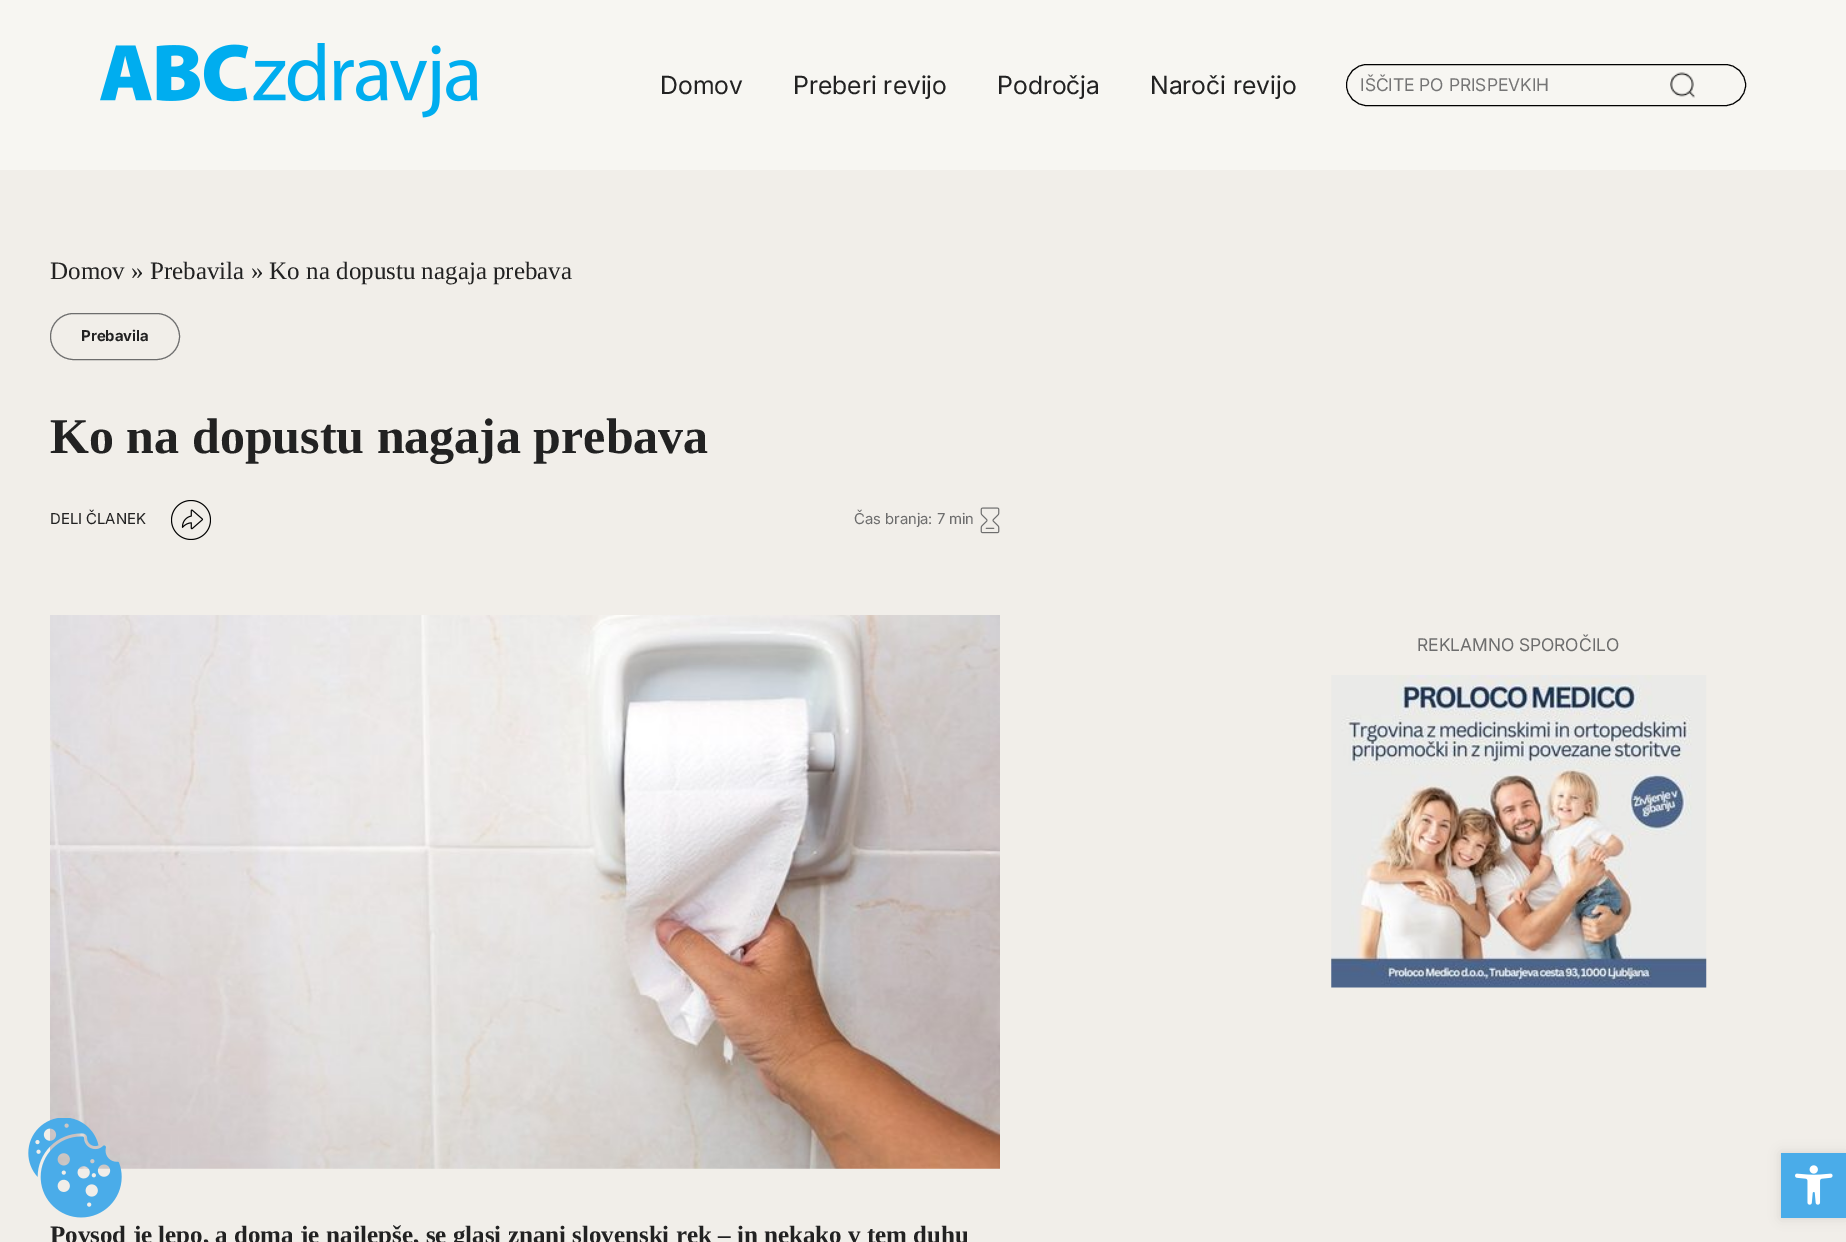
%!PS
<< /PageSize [1846 1242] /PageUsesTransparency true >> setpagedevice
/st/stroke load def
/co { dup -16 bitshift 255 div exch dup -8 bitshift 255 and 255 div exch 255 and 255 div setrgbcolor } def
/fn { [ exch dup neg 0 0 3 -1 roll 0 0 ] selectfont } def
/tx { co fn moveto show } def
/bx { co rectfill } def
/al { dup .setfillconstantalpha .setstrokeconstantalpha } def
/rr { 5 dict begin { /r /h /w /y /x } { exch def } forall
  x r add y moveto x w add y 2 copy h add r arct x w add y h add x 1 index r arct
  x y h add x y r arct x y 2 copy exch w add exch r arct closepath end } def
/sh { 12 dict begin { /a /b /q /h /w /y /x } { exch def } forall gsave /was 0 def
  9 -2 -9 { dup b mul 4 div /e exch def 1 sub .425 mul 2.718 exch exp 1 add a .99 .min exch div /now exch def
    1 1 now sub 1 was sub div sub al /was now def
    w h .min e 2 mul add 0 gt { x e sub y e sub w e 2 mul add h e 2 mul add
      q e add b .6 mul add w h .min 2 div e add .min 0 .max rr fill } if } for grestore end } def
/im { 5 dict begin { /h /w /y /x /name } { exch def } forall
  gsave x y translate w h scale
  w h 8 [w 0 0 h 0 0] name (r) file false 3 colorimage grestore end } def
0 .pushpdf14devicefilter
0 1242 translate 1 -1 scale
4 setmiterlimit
0 0 1846 1242 16#F1EEE9 bx
0 0 1846 170 16#F7F6F2 bx
(media/1.raw) 100 43 378 75 im
16#000000 co
1346.5 64.5 399 41 20.5 rr st
(media/2.raw) 1670 72 25 26 im
16#6D6D6D co
50.5 313.5 129 46 23 rr st
(media/3.raw) 171 500 40 40 im
(media/4.raw) 980 507 20 27 im
(media/5.raw) 1331 675 376 313 im
(media/6.raw) 50 615 950 554 im
(media/7.raw) 28 1118 94 100 im
16#000000 co
1781 1153 65 65 0 6 .1 sh
1781 1153 65 65 16#4AACE9 bx
(media/8.raw) 1795 1165 38 40 im
(Domov) 660 94 /Inter-Regular 25 16#222222 tx
(Preberi revijo) 793 94 /Inter-Regular 25 16#222222 tx
(Področja) 997 94 /Inter-Regular 25 16#222222 tx
(Naroči revijo) 1150 94 /Inter-Regular 25 16#222222 tx
(IŠČITE PO PRISPEVKIH) 1360 91 /Inter-Regular 17.5 16#757575 tx
(Domov » Prebavila » Ko na dopustu nagaja prebava) 50 279 /LiberationSerif-Regular 25 16#222222 tx
(Prebavila) 81 341 /Inter-Bold 15 16#222222 tx
(Ko na dopustu nagaja prebava) 50 453 /LiberationSerif-Bold 50 16#222222 tx
(DELI ČLANEK) 50 524 /Inter-Regular 15 16#222222 tx
(Čas branja: 7 min) 854 524 /Inter-Regular 15 16#6D6D6D tx
(REKLAMNO SPOROČILO) 1417 651 /Inter-Regular 17.5 16#6D6D6D tx
(Povsod je lepo, a doma je najlepše, se glasi znani slovenski rek – in nekako v tem duhu) 50 1243 /LiberationSerif-Bold 25 16#222222 tx
.poppdf14devicefilter showpage
